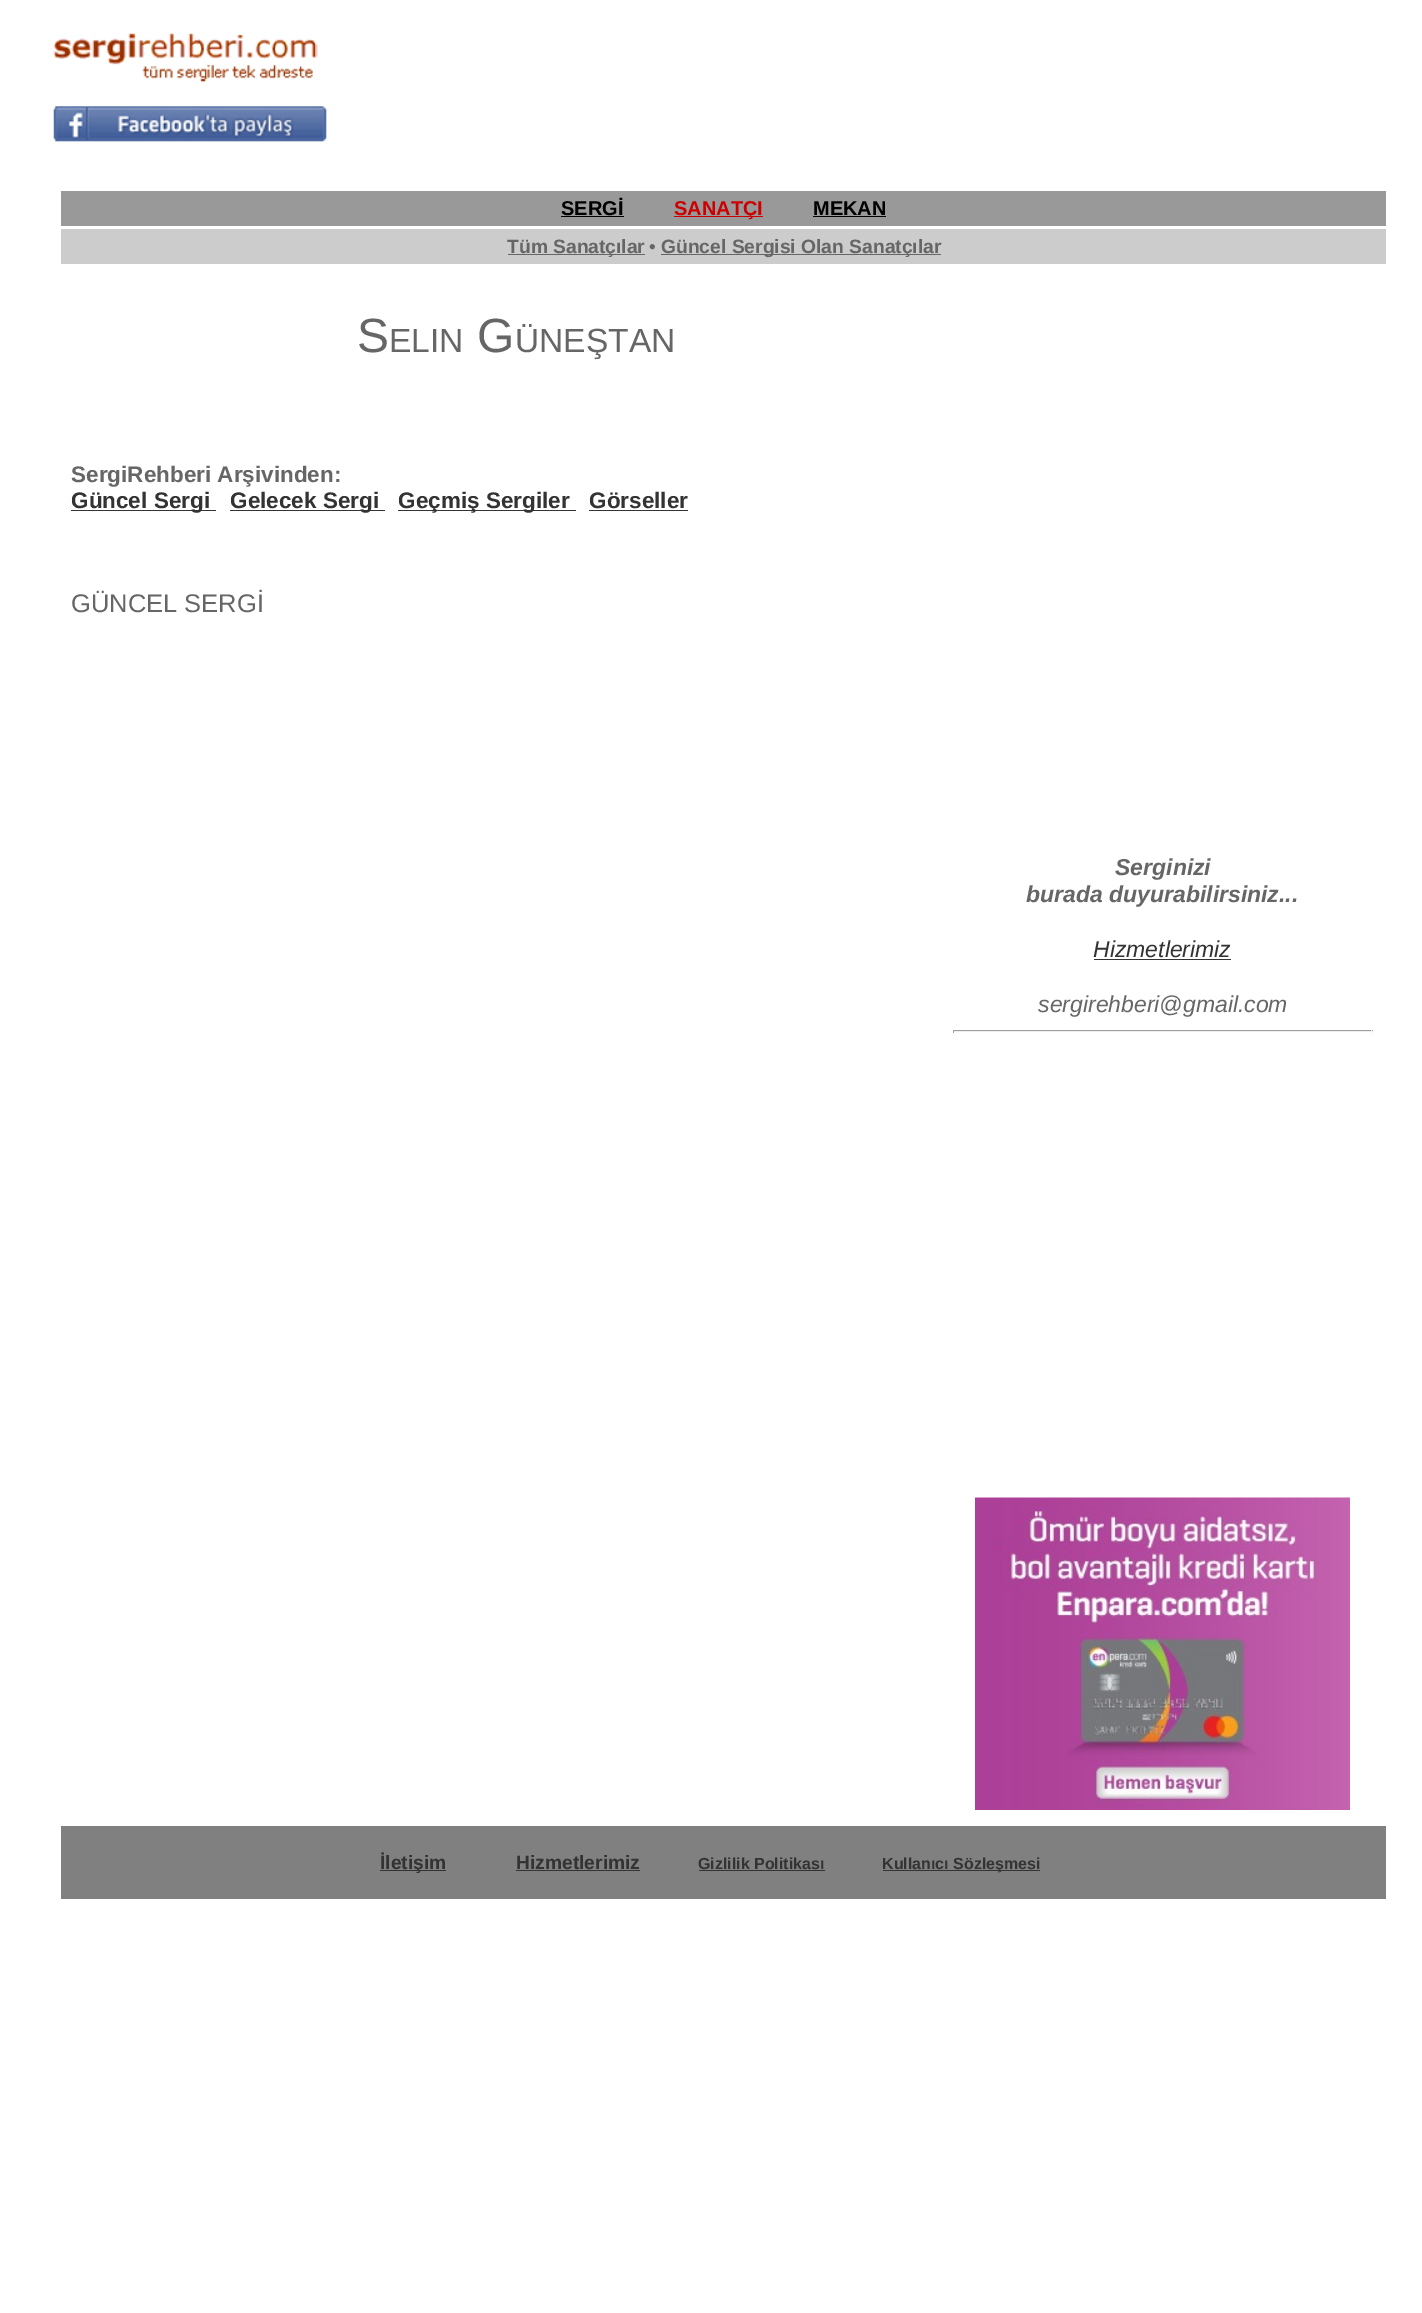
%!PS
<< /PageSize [1422 2313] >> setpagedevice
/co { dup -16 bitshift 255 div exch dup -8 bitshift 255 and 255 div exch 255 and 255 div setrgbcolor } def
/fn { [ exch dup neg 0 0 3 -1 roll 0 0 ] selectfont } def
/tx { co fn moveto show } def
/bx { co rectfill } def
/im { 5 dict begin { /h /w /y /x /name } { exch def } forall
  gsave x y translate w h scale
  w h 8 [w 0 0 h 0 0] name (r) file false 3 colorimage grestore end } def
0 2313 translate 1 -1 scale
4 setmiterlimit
0 0 1422 2313 16#FFFFFF bx
(media/1.raw) 53 33 265 49 im
(media/2.raw) 53 106 274 36 im
61 191 1325 35 16#999999 bx
561 216 63 1 16#000000 bx
674 216 89 1 16#CC0000 bx
813 216 73 1 16#000000 bx
61 229 1325 35 16#CCCCCC bx
508 254 137 1 16#666666 bx
661 254 280 1 16#666666 bx
71 510 145 1 16#333333 bx
230 510 155 1 16#333333 bx
398 510 178 1 16#333333 bx
589 510 99 1 16#333333 bx
1094 959 137 1 16#333333 bx
953 1030 420 1 16#9F9F9F bx
1371 1030 1 3 16#EEEEEE bx
953 1031 420 1 16#EEEEEE bx
953 1030 1 3 16#9F9F9F bx
(media/3.raw) 975 1497 375 313 im
61 1826 1325 73 16#808080 bx
380 1870 66 1 16#333333 bx
516 1870 124 1 16#333333 bx
699 1870 126 1 16#333333 bx
883 1870 157 1 16#333333 bx
(SERGİ) 561 215 /LiberationSans-Bold 20 16#000000 tx
(SANATÇI) 674 215 /LiberationSans-Bold 20 16#CC0000 tx
(MEKAN) 813 215 /LiberationSans-Bold 20 16#000000 tx
(Tüm Sanatçılar) 507 253 /LiberationSans-Bold 19.25 16#666666 tx
(•) 649 253 /LiberationSans-Regular 19.25 16#666666 tx
(Güncel Sergisi Olan Sanatçılar) 661 253 /LiberationSans-Bold 19.25 16#666666 tx
(S) 357 352 /LiberationSans-Regular 48 16#666666 tx
(ELIN) 389 352 /LiberationSans-Regular 33.5 16#666666 tx
(G) 477 352 /LiberationSans-Regular 48 16#666666 tx
(ÜNEŞTAN) 515 352 /LiberationSans-Regular 33.5 16#666666 tx
(SergiRehberi Arşivinden:) 71 482 /LiberationSans-Bold 22.5 16#666666 tx
(Güncel Sergi) 71 508 /LiberationSans-Bold 22.5 16#333333 tx
(Gelecek Sergi) 230 508 /LiberationSans-Bold 22.5 16#333333 tx
(Geçmiş Sergiler) 398 508 /LiberationSans-Bold 22.5 16#333333 tx
(Görseller) 589 508 /LiberationSans-Bold 22.5 16#333333 tx
(GÜNCEL SERGİ) 71 612 /LiberationSans-Regular 25.5 16#666666 tx
(Serginizi) 1115 875 /LiberationSans-BoldItalic 23 16#666666 tx
(burada duyurabilirsiniz...) 1026 902 /LiberationSans-BoldItalic 23 16#666666 tx
(Hizmetlerimiz) 1093 957 /LiberationSans-Italic 23 16#333333 tx
(sergirehberi@gmail.com) 1038 1012 /LiberationSans-Italic 23 16#666666 tx
(İletişim) 380 1869 /LiberationSans-Bold 19.25 16#333333 tx
(Hizmetlerimiz) 516 1869 /LiberationSans-Bold 19.25 16#333333 tx
(Gizlilik Politikası) 698 1869 /LiberationSans-Bold 16 16#333333 tx
(Kullanıcı Sözleşmesi) 882 1869 /LiberationSans-Bold 16 16#333333 tx
showpage
